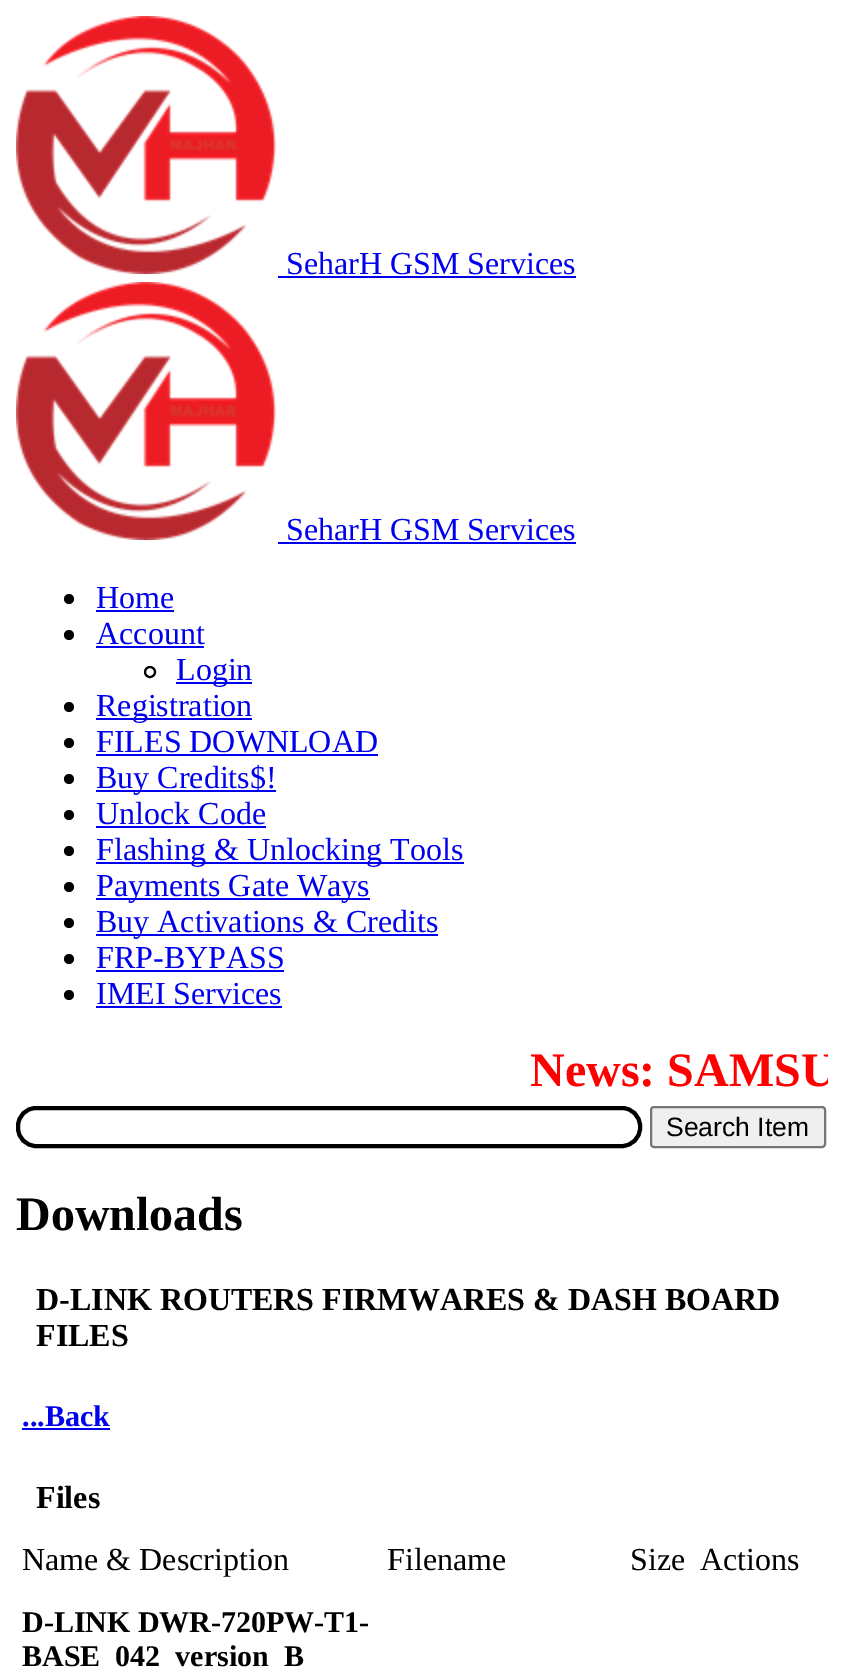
%!PS
<< /PageSize [843 1667] >> setpagedevice
/fl/fill load def
/st/stroke load def
/gs/gsave load def
/gr/grestore load def
/lw/setlinewidth load def
/co { dup -16 bitshift 255 div exch dup -8 bitshift 255 and 255 div exch 255 and 255 div setrgbcolor } def
/fn { [ exch dup neg 0 0 3 -1 roll 0 0 ] selectfont } def
/tx { co fn moveto show } def
/bx { co rectfill } def
/ci { newpath 0 360 arc closepath } def
/rr { 5 dict begin { /r /h /w /y /x } { exch def } forall
  x r add y moveto x w add y 2 copy h add r arct x w add y h add x 1 index r arct
  x y h add x y r arct x y 2 copy exch w add exch r arct closepath end } def
/im { 5 dict begin { /h /w /y /x /name } { exch def } forall
  gsave x y translate w h scale
  w h 8 [w 0 0 h 0 0] name (r) file false 3 colorimage grestore end } def
0 1667 translate 1 -1 scale
4 setmiterlimit
0 0 843 1667 16#FFFFFF bx
(media/1.raw) 16 16 261 258 im
278 276 298 2 16#0000EE bx
(media/1.raw) 16 282 261 258 im
278 542 298 2 16#0000EE bx
16#000000 co
69 599 5 ci fl
96 610 78 2 16#0000EE bx
16#000000 co
69 635 5 ci fl
96 646 108 2 16#0000EE bx
16#000000 co
2 lw
150 672 5 ci st
176 682 76 2 16#0000EE bx
16#000000 co
69 707 5 ci fl
96 718 156 2 16#0000EE bx
16#000000 co
69 743 5 ci fl
96 754 282 2 16#0000EE bx
16#000000 co
69 779 5 ci fl
96 790 180 2 16#0000EE bx
16#000000 co
69 815 5 ci fl
96 826 170 2 16#0000EE bx
16#000000 co
69 851 5 ci fl
96 862 368 2 16#0000EE bx
16#000000 co
69 887 5 ci fl
96 898 274 2 16#0000EE bx
16#000000 co
69 923 5 ci fl
96 934 342 2 16#0000EE bx
16#000000 co
69 959 5 ci fl
96 970 188 2 16#0000EE bx
16#000000 co
69 995 5 ci fl
96 1006 186 2 16#0000EE bx
16#000000 co
4 lw
18 1108 622 38 18 rr st
16#EFEFEF co
651 1107 174 40 3 rr gs fl gr
16#767676 co
2 lw
st
22 1428 88 2 16#0000EE bx
(SeharH GSM Services) 286 274 /LiberationSerif-Regular 32 16#0000EE tx
(SeharH GSM Services) 286 540 /LiberationSerif-Regular 32 16#0000EE tx
(Home) 96 608 /LiberationSerif-Regular 32 16#0000EE tx
(Account) 96 644 /LiberationSerif-Regular 32 16#0000EE tx
(Login) 176 680 /LiberationSerif-Regular 32 16#0000EE tx
(Registration) 96 716 /LiberationSerif-Regular 32 16#0000EE tx
(FILES DOWNLOAD) 96 752 /LiberationSerif-Regular 32 16#0000EE tx
(Buy Credits$!) 96 788 /LiberationSerif-Regular 32 16#0000EE tx
(Unlock Code) 96 824 /LiberationSerif-Regular 32 16#0000EE tx
(Flashing & Unlocking Tools) 96 860 /LiberationSerif-Regular 32 16#0000EE tx
(Payments Gate Ways) 96 896 /LiberationSerif-Regular 32 16#0000EE tx
(Buy Activations & Credits) 96 932 /LiberationSerif-Regular 32 16#0000EE tx
(FRP-BYPASS) 96 968 /LiberationSerif-Regular 32 16#0000EE tx
(IMEI Services) 96 1004 /LiberationSerif-Regular 32 16#0000EE tx
gs
16 1044 812 54 rectclip
(News: SAMSU) 530 1086 /LiberationSerif-Bold 48 16#FF0000 tx
gr
(Search Item) 666 1136 /LiberationSans-Regular 26.5 16#000000 tx
(Downloads) 16 1230 /LiberationSerif-Bold 48 16#000000 tx
(D-LINK ROUTERS FIRMWARES & DASH BOARD) 36 1310 /LiberationSerif-Bold 32 16#000000 tx
(FILES) 36 1346 /LiberationSerif-Bold 32 16#000000 tx
(...Back) 22 1426 /LiberationSerif-Bold 30 16#0000EE tx
(Files) 36 1508 /LiberationSerif-Bold 32 16#000000 tx
(Name & Description) 22 1570 /LiberationSerif-Regular 32 16#000000 tx
(Filename) 387 1570 /LiberationSerif-Regular 32 16#000000 tx
(Size) 630 1570 /LiberationSerif-Regular 32 16#000000 tx
(Actions) 700 1570 /LiberationSerif-Regular 32 16#000000 tx
(D-LINK DWR-720PW-T1-) 22 1632 /LiberationSerif-Bold 30 16#000000 tx
(BASE_042_version_B) 22 1666 /LiberationSerif-Bold 30 16#000000 tx
showpage
